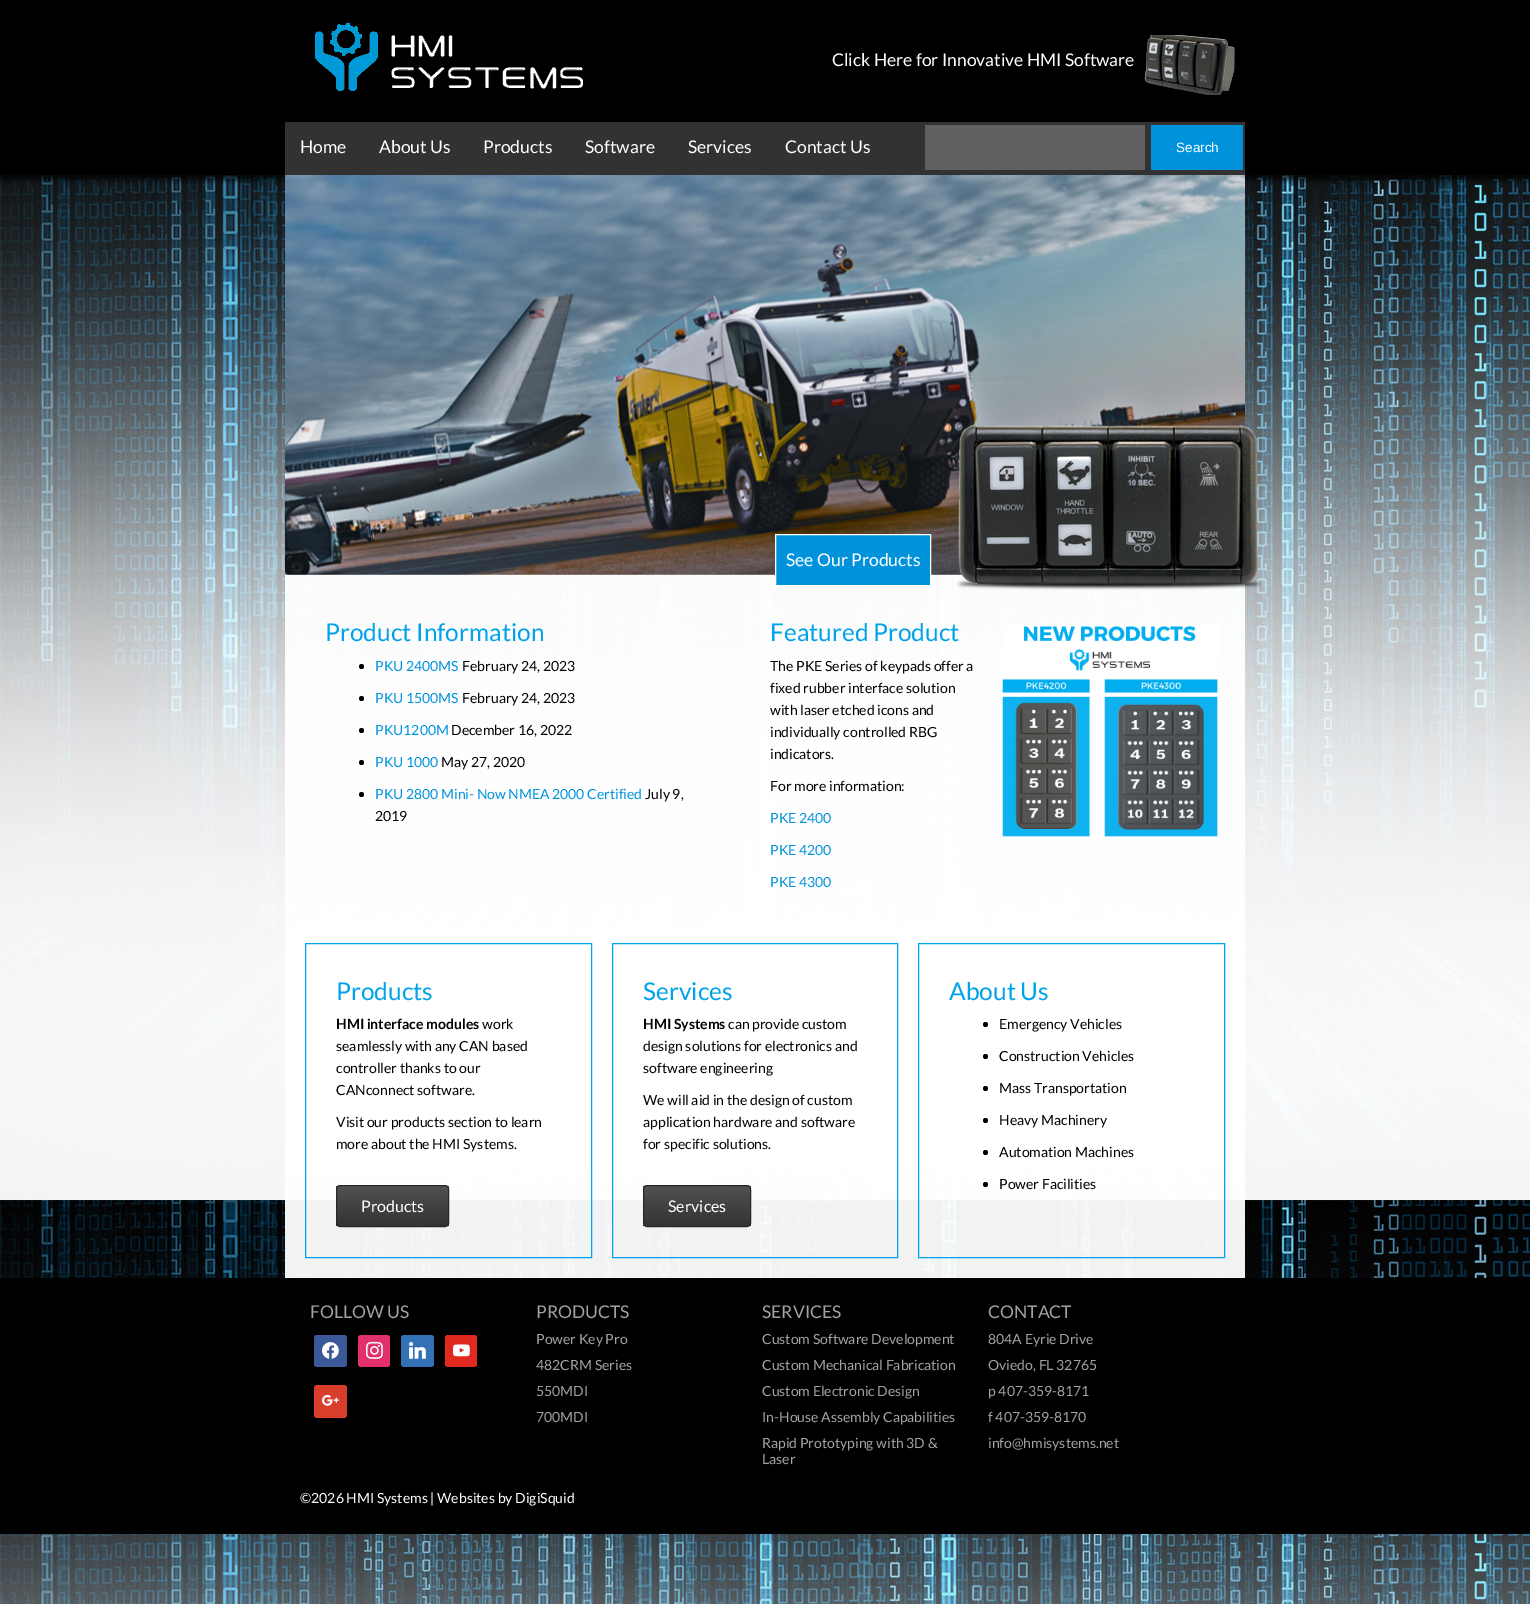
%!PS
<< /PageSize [1530 1604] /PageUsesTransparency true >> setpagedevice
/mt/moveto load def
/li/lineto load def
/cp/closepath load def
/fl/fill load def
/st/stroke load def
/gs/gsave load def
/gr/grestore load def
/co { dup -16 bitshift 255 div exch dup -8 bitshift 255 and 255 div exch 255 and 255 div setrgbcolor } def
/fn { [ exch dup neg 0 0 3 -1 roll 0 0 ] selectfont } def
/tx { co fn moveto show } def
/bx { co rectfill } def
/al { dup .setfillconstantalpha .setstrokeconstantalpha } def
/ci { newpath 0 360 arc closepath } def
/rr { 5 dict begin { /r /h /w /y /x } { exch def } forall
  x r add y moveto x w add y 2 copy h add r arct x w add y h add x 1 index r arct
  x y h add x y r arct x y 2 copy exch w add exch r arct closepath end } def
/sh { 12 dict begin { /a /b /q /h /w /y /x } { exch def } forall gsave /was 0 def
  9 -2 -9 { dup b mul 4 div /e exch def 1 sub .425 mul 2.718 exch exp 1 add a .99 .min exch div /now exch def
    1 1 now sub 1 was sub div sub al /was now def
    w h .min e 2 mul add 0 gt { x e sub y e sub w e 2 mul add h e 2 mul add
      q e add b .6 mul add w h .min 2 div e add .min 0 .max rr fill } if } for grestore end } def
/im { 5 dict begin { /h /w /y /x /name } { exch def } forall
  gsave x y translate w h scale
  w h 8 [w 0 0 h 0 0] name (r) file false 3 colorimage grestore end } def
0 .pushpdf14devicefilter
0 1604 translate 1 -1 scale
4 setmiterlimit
0 0 1530 1604 16#FFFFFF bx
(media/1.raw) 0 175 1530 1429 im
16#000000 co
0 5 1530 175 0 2.5 .75 sh
0 0 1530 175 16#000000 bx
(media/2.raw) 315 22 268 69 im
(media/3.raw) 1144 35 91 60 im
285 122 960 53 16#323232 bx
925 125 220 45 16#606060 bx
1151 125 92 45 16#0093DC bx
0.95 al
285 574 960 704 16#FFFFFF bx
1 al
(media/5.raw) 285 175 960 400 im
16#0093DC co
775.5 534.5 mt 930.5 534.5 li 930.5 585.5 li 775.5 585.5 li cp gs fl gr
16#FFFFFF co
st
(media/4.raw) 957 425 305 165 im
16#000000 co
361.5 666.5 2.5 ci fl
361.5 698.5 2.5 ci fl
361.5 730.5 2.5 ci fl
361.5 762.5 2.5 ci fl
361.5 794.5 2.5 ci fl
(media/6.raw) 1002 625 216 212 im
16#00A3E9 co
305.5 943.5 286 314 rectstroke
gs
336 1185 113 42 4 rr clip newpath
gs 336 1186 mt 449 1186 li 449 1226 li 336 1226 li cp clip newpath
<< /ShadingType 2 /ColorSpace /DeviceRGB /Coords [393 1186 393 1226] /Extend [true true] /Function << /FunctionType 2 /Domain [0 1] /C0 [.318 .318 .318] /C1 [.2 .2 .2] /N 1 >> >> shfill gr
gr
16#272727 co
336.5 1185.5 112 41 3.5 rr st
16#00A3E9 co
612.5 943.5 285 314 rectstroke
gs
643 1185 108 42 4 rr clip newpath
gs 643 1186 mt 751 1186 li 751 1226 li 643 1226 li cp clip newpath
<< /ShadingType 2 /ColorSpace /DeviceRGB /Coords [697 1186 697 1226] /Extend [true true] /Function << /FunctionType 2 /Domain [0 1] /C0 [.318 .318 .318] /C1 [.2 .2 .2] /N 1 >> >> shfill gr
gr
16#272727 co
643.5 1185.5 107 41 3.5 rr st
16#00A3E9 co
918.5 943.5 306 314 rectstroke
16#000000 co
985.5 1024.5 2.5 ci fl
985.5 1056.5 2.5 ci fl
985.5 1088.5 2.5 ci fl
985.5 1120.5 2.5 ci fl
985.5 1152.5 2.5 ci fl
985.5 1184.5 2.5 ci fl
0 1278 1530 256 16#000000 bx
16#3B5998 co
314 1335 33 32 3 rr fl
(media/7.raw) 322 1342 17 17 im
16#E1306C co
358 1335 32 32 3 rr fl
(media/8.raw) 366 1341 17 18 im
16#3371B7 co
401 1335 33 32 3 rr fl
(media/9.raw) 409 1342 17 17 im
16#E02A20 co
445 1335 32 32 3 rr fl
(media/10.raw) 453 1344 17 13 im
16#D93E2D co
314 1385 33 33 3 rr fl
(media/11.raw) 322 1395 17 11 im
(Click Here for Innovative HMI Software) 832 66 /Lato-Regular 17.5 16#FFFFFF tx
(Home) 300 153 /Lato-Regular 17.5 16#FFFFFF tx
(About Us) 379 153 /Lato-Regular 17.5 16#FFFFFF tx
(Products) 483 153 /Lato-Regular 17.5 16#FFFFFF tx
(Software) 585 153 /Lato-Regular 17.5 16#FFFFFF tx
(Services) 688 153 /Lato-Regular 17.5 16#FFFFFF tx
(Contact Us) 785 153 /Lato-Regular 17.5 16#FFFFFF tx
(Search) 1176 152 /LiberationSans-Regular 13.5 16#FFFFFF tx
(See Our Products) 786 566 /Lato-Regular 17.5 16#FFFFFF tx
(Product Information) 325 641 /Lato-Regular 24.5 16#00A3E9 tx
(PKU 2400MS) 375 671 /Lato-Regular 14 16#0093DC tx
(February 24, 2023) 462 671 /Lato-Regular 14 16#000000 tx
(PKU 1500MS) 375 703 /Lato-Regular 14 16#0093DC tx
(February 24, 2023) 462 703 /Lato-Regular 14 16#000000 tx
(PKU1200M) 375 735 /Lato-Regular 14 16#0093DC tx
(December 16, 2022) 451 735 /Lato-Regular 14 16#000000 tx
(PKU 1000) 375 767 /Lato-Regular 14 16#0093DC tx
(May 27, 2020) 441 767 /Lato-Regular 14 16#000000 tx
(PKU 2800 Mini- Now NMEA 2000 Certified) 375 799 /Lato-Regular 14 16#0093DC tx
(July 9,) 645 799 /Lato-Regular 14 16#000000 tx
(2019) 375 821 /Lato-Regular 14 16#000000 tx
(Featured Product) 770 641 /Lato-Regular 24.5 16#00A3E9 tx
(The PKE Series of keypads offer a) 770 671 /Lato-Regular 14 16#000000 tx
(fixed rubber interface solution) 770 693 /Lato-Regular 14 16#000000 tx
(with laser etched icons and) 770 715 /Lato-Regular 14 16#000000 tx
(individually controlled RBG) 770 737 /Lato-Regular 14 16#000000 tx
(indicators.) 770 759 /Lato-Regular 14 16#000000 tx
(For more information:) 770 791 /Lato-Regular 14 16#000000 tx
(PKE 2400) 770 823 /Lato-Regular 14 16#0093DC tx
(PKE 4200) 770 855 /Lato-Regular 14 16#0093DC tx
(PKE 4300) 770 887 /Lato-Regular 14 16#0093DC tx
(Products) 336 1000 /Lato-Regular 24.5 16#00A3E9 tx
(HMI interface modules) 336 1029 /Lato-Bold 14 16#000000 tx
(work) 482 1029 /Lato-Regular 14 16#000000 tx
(seamlessly with any CAN based) 336 1051 /Lato-Regular 14 16#000000 tx
(controller thanks to our) 336 1073 /Lato-Regular 14 16#000000 tx
(CANconnect software.) 336 1095 /Lato-Regular 14 16#000000 tx
(Visit our products section to learn) 336 1127 /Lato-Regular 14 16#000000 tx
(more about the HMI Systems.) 336 1149 /Lato-Regular 14 16#000000 tx
(Products) 361 1212 /Lato-Regular 16 16#FFFFFF tx
(Services) 643 1000 /Lato-Regular 24.5 16#00A3E9 tx
(HMI Systems) 643 1029 /Lato-Bold 14 16#000000 tx
(can provide custom) 728 1029 /Lato-Regular 14 16#000000 tx
(design solutions for electronics and) 643 1051 /Lato-Regular 14 16#000000 tx
(software engineering) 643 1073 /Lato-Regular 14 16#000000 tx
(We will aid in the design of custom) 643 1105 /Lato-Regular 14 16#000000 tx
(application hardware and software) 643 1127 /Lato-Regular 14 16#000000 tx
(for specific solutions.) 643 1149 /Lato-Regular 14 16#000000 tx
(Services) 668 1212 /Lato-Regular 16 16#FFFFFF tx
(About Us) 949 1000 /Lato-Regular 24.5 16#00A3E9 tx
(Emergency Vehicles) 999 1029 /Lato-Regular 14 16#000000 tx
(Construction Vehicles) 999 1061 /Lato-Regular 14 16#000000 tx
(Mass Transportation) 999 1093 /Lato-Regular 14 16#000000 tx
(Heavy Machinery) 999 1125 /Lato-Regular 14 16#000000 tx
(Automation Machines) 999 1157 /Lato-Regular 14 16#000000 tx
(Power Facilities) 999 1189 /Lato-Regular 14 16#000000 tx
(FOLLOW US) 310 1318 /Lato-Regular 17.5 16#A2A2A2 tx
(PRODUCTS) 536 1318 /Lato-Regular 17.5 16#A2A2A2 tx
(Power Key Pro) 536 1344 /Lato-Regular 14 16#A2A2A2 tx
(482CRM Series) 536 1370 /Lato-Regular 14 16#A2A2A2 tx
(550MDI) 536 1396 /Lato-Regular 14 16#A2A2A2 tx
(700MDI) 536 1422 /Lato-Regular 14 16#A2A2A2 tx
(SERVICES) 762 1318 /Lato-Regular 17.5 16#A2A2A2 tx
(Custom Software Development) 762 1344 /Lato-Regular 14 16#A2A2A2 tx
(Custom Mechanical Fabrication) 762 1370 /Lato-Regular 14 16#A2A2A2 tx
(Custom Electronic Design) 762 1396 /Lato-Regular 14 16#A2A2A2 tx
(In-House Assembly Capabilities) 762 1422 /Lato-Regular 14 16#A2A2A2 tx
(Rapid Prototyping with 3D &) 762 1448 /Lato-Regular 14 16#A2A2A2 tx
(Laser) 762 1464 /Lato-Regular 14 16#A2A2A2 tx
(CONTACT) 988 1318 /Lato-Regular 17.5 16#A2A2A2 tx
(804A Eyrie Drive) 988 1344 /Lato-Regular 14 16#A2A2A2 tx
(Oviedo, FL 32765) 988 1370 /Lato-Regular 14 16#A2A2A2 tx
(p 407-359-8171) 988 1396 /Lato-Regular 14 16#A2A2A2 tx
(f 407-359-8170) 988 1422 /Lato-Regular 14 16#A2A2A2 tx
(info@hmisystems.net) 988 1448 /Lato-Regular 14 16#A2A2A2 tx
(©2026 HMI Systems | Websites by DigiSquid) 300 1503 /Lato-Regular 14 16#FFFFFF tx
.poppdf14devicefilter showpage
